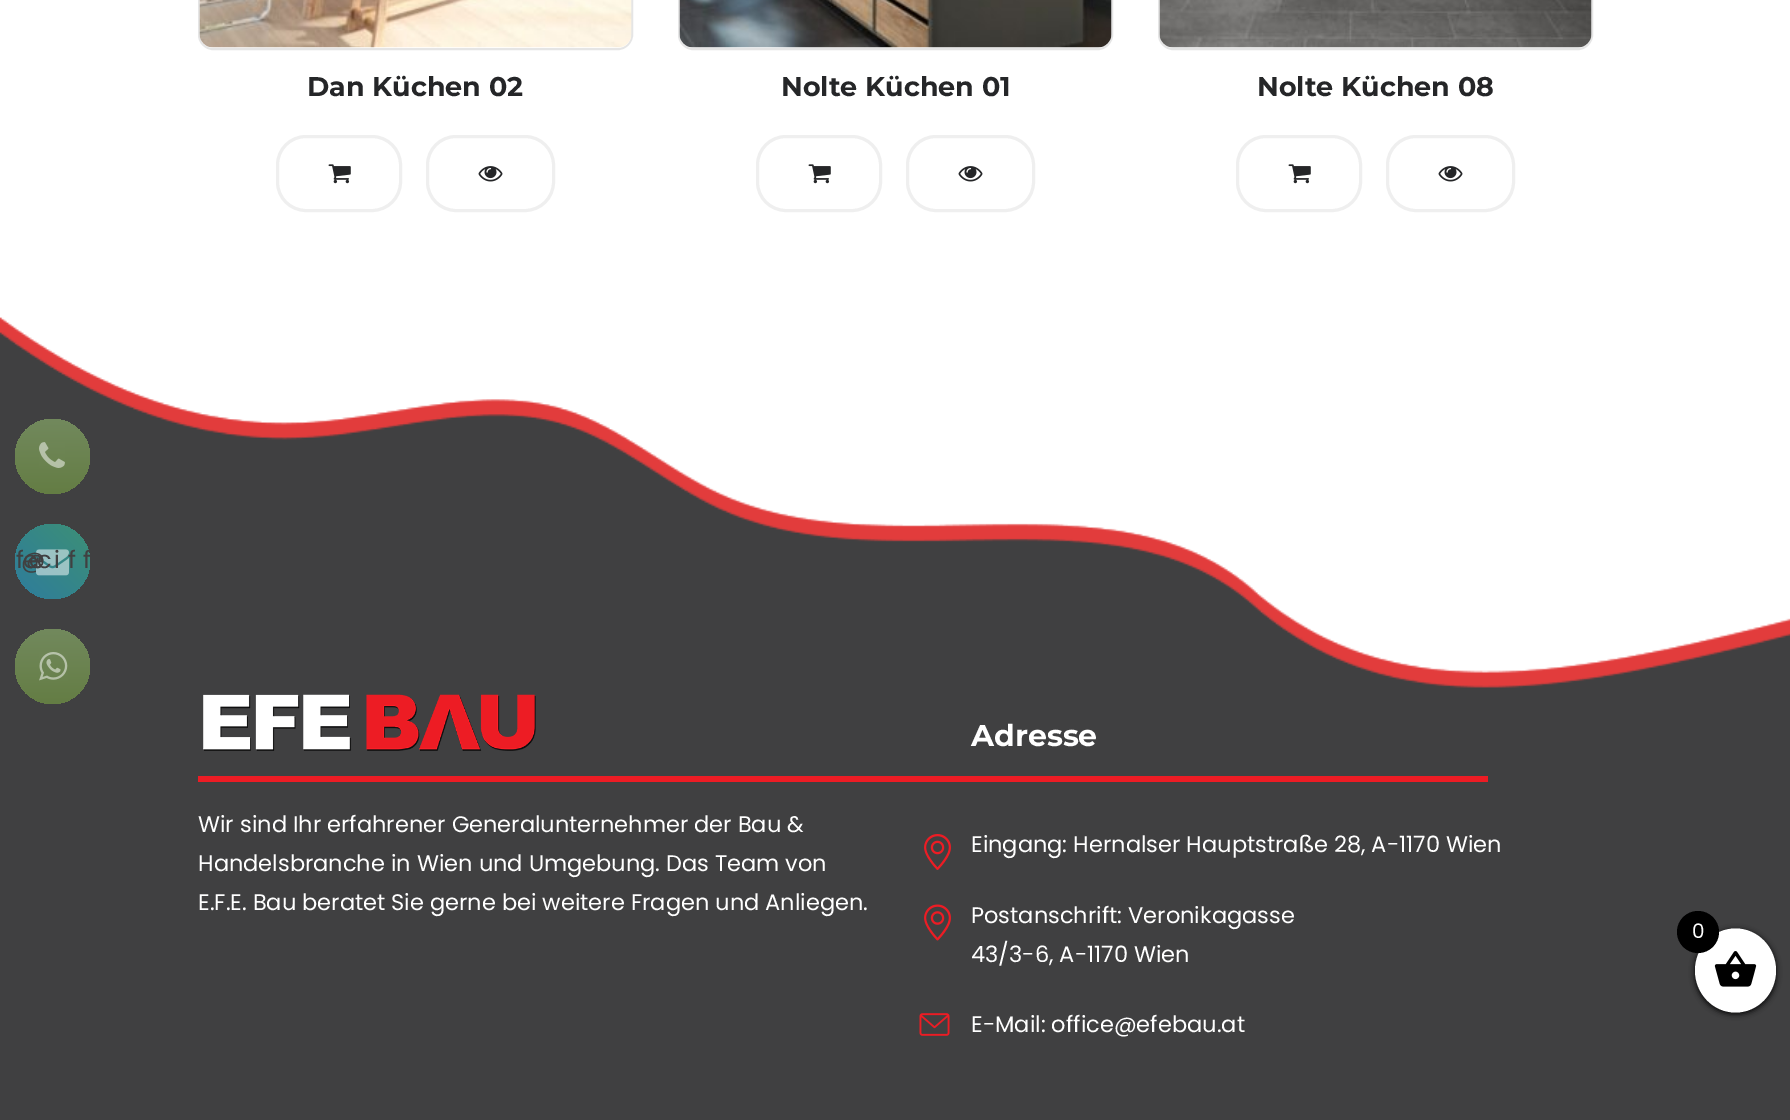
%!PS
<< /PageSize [1790 1120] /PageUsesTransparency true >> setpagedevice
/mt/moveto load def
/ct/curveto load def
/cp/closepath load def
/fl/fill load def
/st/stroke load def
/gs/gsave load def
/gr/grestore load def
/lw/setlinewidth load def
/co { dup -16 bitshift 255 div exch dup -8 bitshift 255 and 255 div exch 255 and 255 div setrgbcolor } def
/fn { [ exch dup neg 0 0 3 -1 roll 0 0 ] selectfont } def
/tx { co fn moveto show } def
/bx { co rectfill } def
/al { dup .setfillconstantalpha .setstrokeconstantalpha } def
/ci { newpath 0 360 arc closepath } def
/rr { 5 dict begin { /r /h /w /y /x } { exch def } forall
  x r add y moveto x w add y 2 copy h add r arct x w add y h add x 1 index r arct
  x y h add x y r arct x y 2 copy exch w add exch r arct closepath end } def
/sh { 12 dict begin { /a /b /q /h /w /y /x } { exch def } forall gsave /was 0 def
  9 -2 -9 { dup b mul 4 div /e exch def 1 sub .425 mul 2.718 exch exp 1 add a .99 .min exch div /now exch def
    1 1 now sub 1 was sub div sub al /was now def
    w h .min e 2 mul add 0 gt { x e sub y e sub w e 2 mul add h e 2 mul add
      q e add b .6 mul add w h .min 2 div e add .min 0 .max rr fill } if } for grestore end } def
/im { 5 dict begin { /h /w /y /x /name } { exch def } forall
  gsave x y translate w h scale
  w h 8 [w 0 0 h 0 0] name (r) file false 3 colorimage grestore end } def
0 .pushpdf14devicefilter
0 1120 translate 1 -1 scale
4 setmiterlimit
0 0 1790 1120 16#FFFFFF bx
16#E5E5E5 co
2 lw
199 -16 433 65 14 rr st
(media/1.raw) 199 0 433 48 im
16#EFEFEF co
3 lw
277.5 136.5 123 74 28.5 rr st
(media/2.raw) 328 164 23 20 im
427.5 136.5 126 74 28.5 rr st
(media/3.raw) 478 166 25 16 im
16#E5E5E5 co
2 lw
679 -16 433 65 14 rr st
(media/4.raw) 679 0 433 48 im
16#EFEFEF co
3 lw
757.5 136.5 123 74 28.5 rr st
(media/2.raw) 808 164 23 20 im
907.5 136.5 126 74 28.5 rr st
(media/3.raw) 958 166 25 16 im
16#E5E5E5 co
2 lw
1159 -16 433 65 14 rr st
(media/5.raw) 1159 0 433 48 im
16#EFEFEF co
3 lw
1237.5 136.5 123 74 28.5 rr st
(media/2.raw) 1288 164 23 20 im
1387.5 136.5 126 74 28.5 rr st
(media/3.raw) 1438 166 25 16 im
(media/9.raw) 0 317 1790 803 im
gs 52.5 456.5 37.5 ci clip newpath
<< /ShadingType 2 /ColorSpace /DeviceRGB /Coords [53 419 53 494] /Extend [true true] /Function << /FunctionType 2 /Domain [0 1] /C0 [.447 .537 .365] /C1 [.392 .49 .267] /N 1 >> >> shfill gr
(media/6.raw) 39 442 26 26 im
gs 52.5 561.5 37.5 ci clip newpath
<< /ShadingType 2 /ColorSpace /DeviceRGB /Coords [15 599 90 524] /Extend [true true] /Function << /FunctionType 3 /Domain [0 1] /Functions [<< /FunctionType 2 /Domain [0 1] /C0 [.184 .494 .6] /C1 [.184 .494 .6] /N 1 >> << /FunctionType 2 /Domain [0 1] /C0 [.184 .494 .6] /C1 [.239 .565 .463] /N 1 >>] /Bounds [.08] /Encode [0 1 0 1] >> >> shfill gr
(media/7.raw) 36 549 33 27 im
gs 52.5 666.5 37.5 ci clip newpath
<< /ShadingType 2 /ColorSpace /DeviceRGB /Coords [53 629 53 704] /Extend [true true] /Function << /FunctionType 2 /Domain [0 1] /C0 [.447 .537 .365] /C1 [.392 .49 .267] /N 1 >> >> shfill gr
(media/8.raw) 39 652 29 29 im
(media/10.raw) 924 834 27 36 im
(media/11.raw) 924 904 27 37 im
(media/12.raw) 919 1013 31 23 im
198 776 1290 6 16#ED1C24 bx
(media/13.raw) 203 694 333 57 im
16#000000 co
1695 930 81 84 40.5 3 1 sh
16#FFFFFF co
1735.5 928.5 mt 1758 928.5 1776 947.5 1776 970.5 ct 1776 993.5 1758 1012.5 1735.5 1012.5 ct 1713 1012.5 1695 993.5 1695 970.5 ct 1695 947.5 1713 928.5 1735.5 928.5 ct cp fl
16#000000 co
1698 932 21 ci fl
(media/14.raw) 1714 951 43 36 im
(Dan Küchen 02) 307 96 /Montserrat-Bold 27 16#252628 tx
(Nolte Küchen 01) 781 96 /Montserrat-Bold 27 16#252628 tx
(Nolte Küchen 08) 1257 96 /Montserrat-Bold 27 16#252628 tx
/Poppins-Regular 24 fn
16#404041 co
90 568 mt -22.5 0 (office@efebau.at) ashow
(Adresse) 971 746 /Montserrat-Bold 30 16#FFFFFF tx
(Eingang: Hernalser Hauptstraße 28, A-1170 Wien) 971 852 /Poppins-Regular 22.5 16#FFFFFF tx
(Postanschrift: Veronikagasse) 971 923 /Poppins-Regular 22.5 16#FFFFFF tx
(43/3-6, A-1170 Wien) 971 962 /Poppins-Regular 22.5 16#FFFFFF tx
(E-Mail: office@efebau.at) 971 1032 /Poppins-Regular 22.5 16#FFFFFF tx
(Wir sind Ihr erfahrener Generalunternehmer der Bau &) 198 832 /Poppins-Regular 22.5 16#FFFFFF tx
(Handelsbranche in Wien und Umgebung. Das Team von) 198 871 /Poppins-Regular 22.5 16#FFFFFF tx
(E.F.E. Bau beratet Sie gerne bei weitere Fragen und Anliegen.) 198 910 /Poppins-Regular 22.5 16#FFFFFF tx
(0) 1692 938 /Poppins-Regular 20 16#FFFFFF tx
.poppdf14devicefilter showpage
